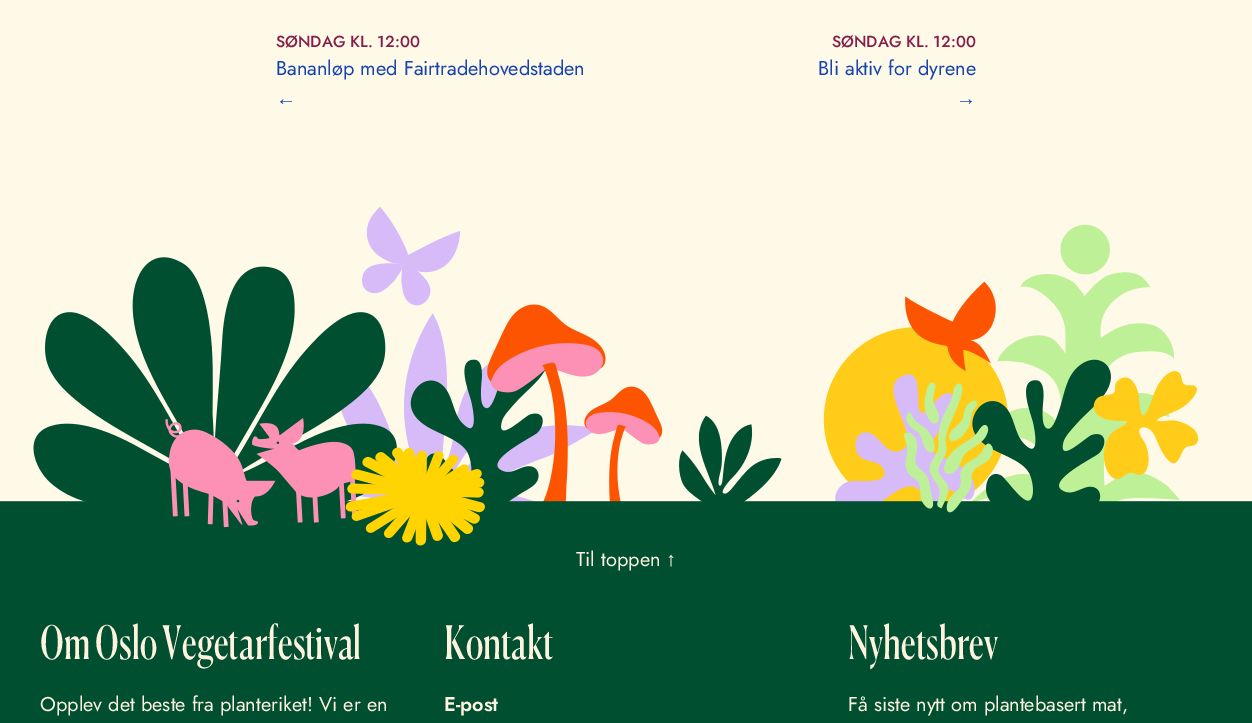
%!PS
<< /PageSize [1252 723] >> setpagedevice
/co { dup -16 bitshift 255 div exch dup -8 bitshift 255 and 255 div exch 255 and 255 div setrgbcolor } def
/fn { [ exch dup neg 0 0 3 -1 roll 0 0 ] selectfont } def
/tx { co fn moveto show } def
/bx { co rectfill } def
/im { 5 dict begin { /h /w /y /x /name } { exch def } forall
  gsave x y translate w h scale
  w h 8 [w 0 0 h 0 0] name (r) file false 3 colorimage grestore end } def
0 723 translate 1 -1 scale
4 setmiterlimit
0 0 1252 723 16#FFFAE8 bx
(media/1.raw) 0 207 1252 339 im
0 546 1252 177 16#004F30 bx
(SØNDAG KL. 12:00) 276 47 /Jost-Medium 16 16#851F4A tx
(Bananløp med Fairtradehovedstaden) 276 75 /Jost-Regular 20 16#1544AF tx
(←) 276 105 /LiberationSans-Regular 20 16#1544AF tx
(SØNDAG KL. 12:00) 832 47 /Jost-Medium 16 16#851F4A tx
(Bli aktiv for dyrene) 818 75 /Jost-Regular 20 16#1544AF tx
(→) 956 105 /LiberationSans-Regular 20 16#1544AF tx
(Til toppen) 576 566 /Jost-Regular 20 16#FFF3E0 tx
(↑) 666 566 /LiberationSans-Regular 20 16#FFF3E0 tx
(Om Oslo Vegetarfestival) 40 659 /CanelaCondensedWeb-Regular 46 16#FFF3E0 tx
(Opplev det beste fra planteriket! Vi er en) 40 711 /Jost-Regular 20 16#FFF3E0 tx
(Kontakt) 444 659 /CanelaCondensedWeb-Regular 46 16#FFF3E0 tx
(E-post) 444 711 /Jost-SemiBold 20 16#FFF3E0 tx
(Nyhetsbrev) 848 659 /CanelaCondensedWeb-Regular 46 16#FFF3E0 tx
(Få siste nytt om plantebasert mat,) 848 711 /Jost-Regular 20 16#FFF3E0 tx
showpage
